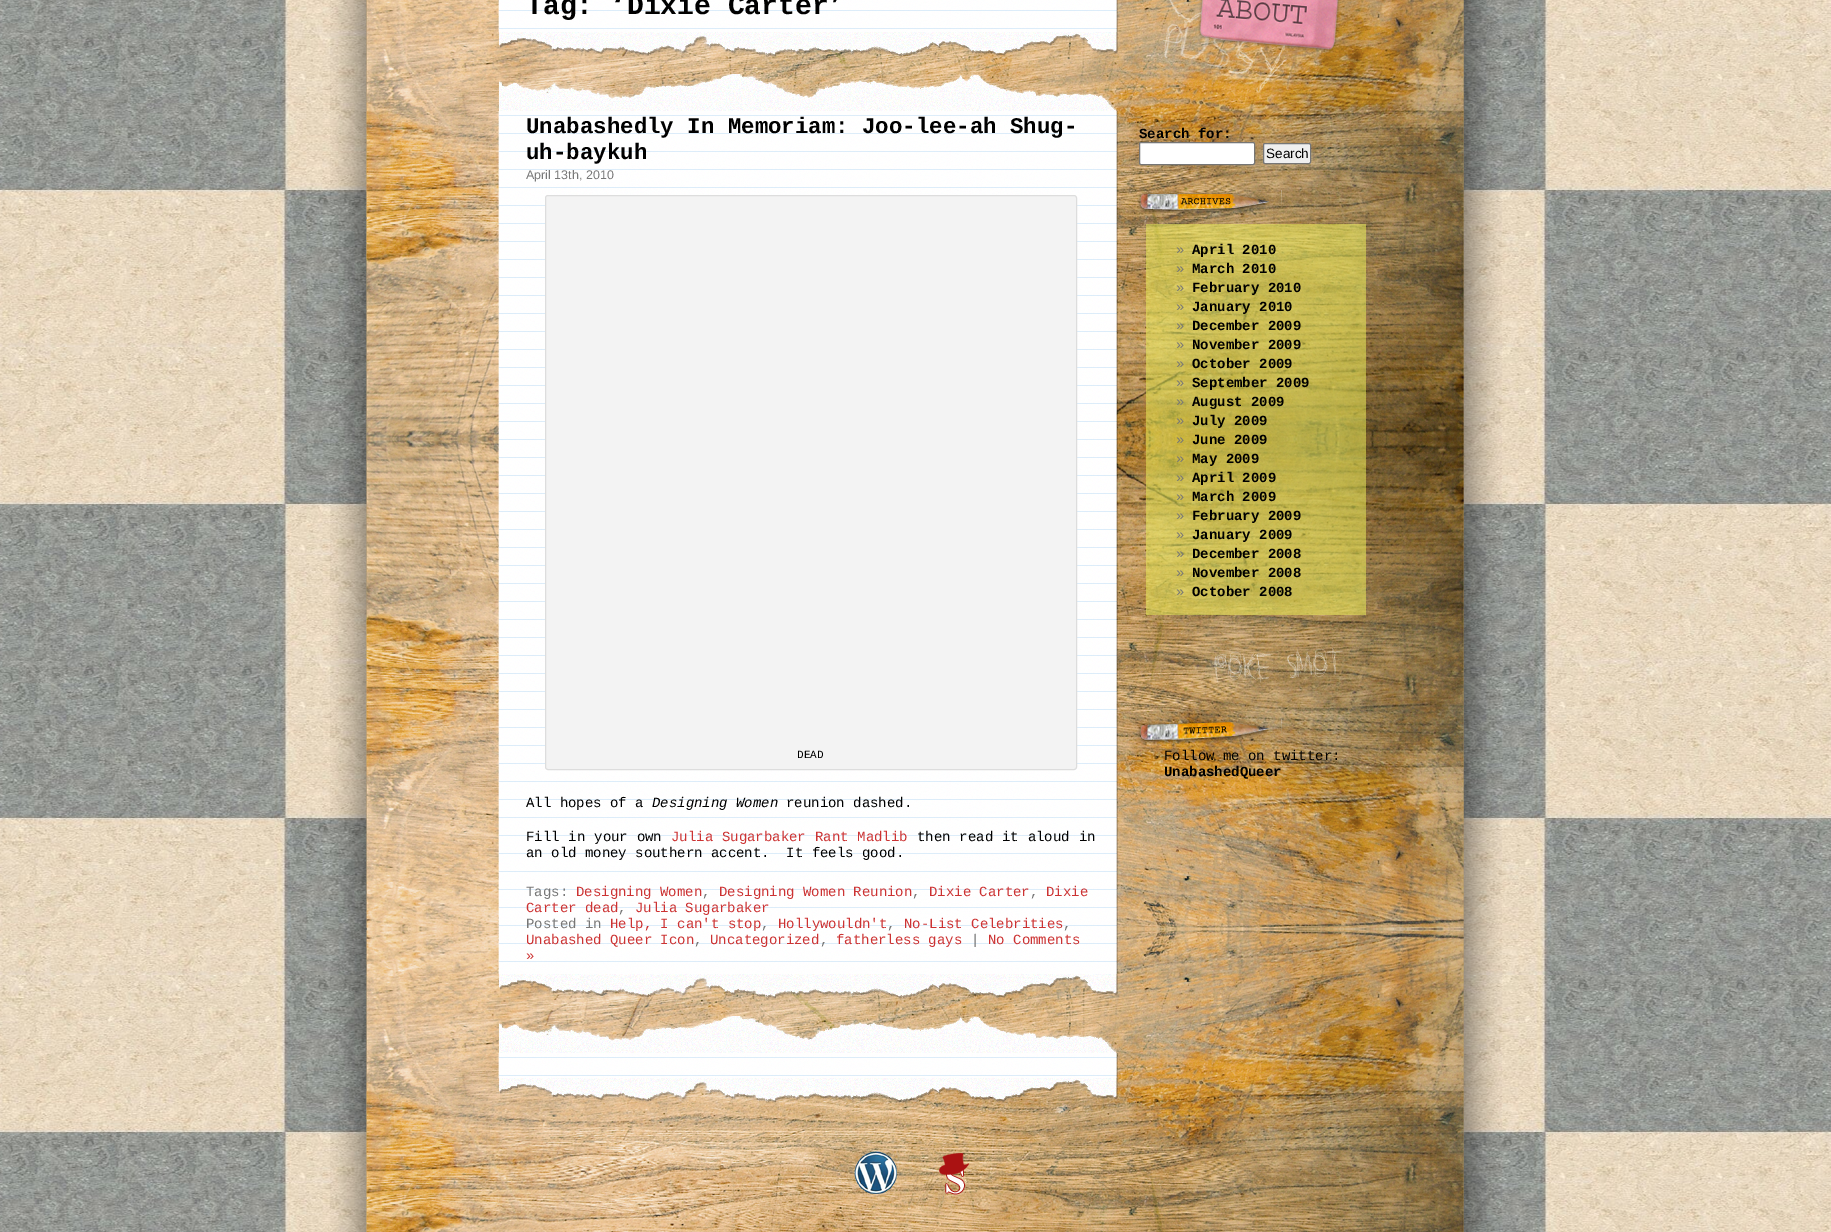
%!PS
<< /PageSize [1831 1232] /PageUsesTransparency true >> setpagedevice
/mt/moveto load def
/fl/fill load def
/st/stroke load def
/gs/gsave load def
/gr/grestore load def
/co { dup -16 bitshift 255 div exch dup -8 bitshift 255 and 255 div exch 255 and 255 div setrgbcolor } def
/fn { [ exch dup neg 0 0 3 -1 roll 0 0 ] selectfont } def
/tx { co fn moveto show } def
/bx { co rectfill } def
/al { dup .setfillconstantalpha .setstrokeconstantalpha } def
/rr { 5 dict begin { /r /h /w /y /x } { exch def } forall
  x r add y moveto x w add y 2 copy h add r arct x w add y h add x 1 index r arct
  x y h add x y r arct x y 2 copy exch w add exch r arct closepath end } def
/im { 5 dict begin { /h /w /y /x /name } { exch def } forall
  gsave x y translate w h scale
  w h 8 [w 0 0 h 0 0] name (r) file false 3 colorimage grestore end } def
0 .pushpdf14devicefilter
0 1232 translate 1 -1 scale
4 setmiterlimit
0 0 1831 1232 16#FFFFFF bx
(media/1.raw) 0 0 1831 1232 im
(media/2.raw) 330 0 1172 1232 im
(media/3.raw) 498 0 620 32 im
(media/4.raw) 498 32 620 27 im
(media/5.raw) 498 74 620 37 im
(media/6.raw) 498 111 620 863 im
16#F3F3F3 co
545.5 195.5 531 574 2.5 rr gs fl gr
16#DDDDDD co
st
(media/7.raw) 498 974 620 27 im
(media/8.raw) 498 1016 620 37 im
(media/9.raw) 498 1053 620 25 im
(media/10.raw) 498 1078 620 27 im
(media/11.raw) 1163 0 124 93 im
(media/12.raw) 1197 0 144 52 im
16#FFFFFF co
1139.5 142.5 115 22 1.5 rr gs fl gr
16#767676 co
st
16#EFEFEF co
1263.5 143.5 47 20 1.5 rr gs fl gr
16#767676 co
st
(media/13.raw) 1137 190 146 24 im
0.55 al
1146 224 220 391 16#E9EB59 bx
1 al
(media/14.raw) 1214 648 129 35 im
(media/15.raw) 1137 719 146 25 im
(media/16.raw) 854 1151 43 43 im
(media/17.raw) 939 1153 30 42 im
(Tag: ‘Dixie Carter’) 526 14 /LiberationMono-Bold 28 16#000000 tx
(Unabashedly In Memoriam: Joo-lee-ah Shug-) 526 133 /LiberationMono-Bold 22.4 16#000000 tx
(uh-baykuh) 526 159 /LiberationMono-Bold 22.4 16#000000 tx
(April 13th, 2010) 526 179 /LiberationSans-Regular 12.5 16#777777 tx
(DEAD) 797 758 /LiberationMono-Regular 11 16#000000 tx
(All hopes of a) 526 807 /LiberationMono-Regular 14 16#000000 tx
(Designing Women) 652 807 /LiberationMono-Italic 14 16#000000 tx
(reunion dashed.) 786 807 /LiberationMono-Regular 14 16#000000 tx
526 841 mt .5 0 32 (Fill in your own) widthshow
16#CC3333 co
671 841 mt .5 0 32 (Julia Sugarbaker Rant Madlib) widthshow
16#000000 co
917 841 mt .5 0 32 (then read it aloud in) widthshow
(an old money southern accent.  It feels good.) 526 857 /LiberationMono-Regular 14 16#000000 tx
(Tags:) 526 896 /LiberationMono-Regular 14 16#777777 tx
(Designing Women) 576 896 /LiberationMono-Regular 14 16#CC3333 tx
(,) 702 896 /LiberationMono-Regular 14 16#777777 tx
(Designing Women Reunion) 719 896 /LiberationMono-Regular 14 16#CC3333 tx
(,) 912 896 /LiberationMono-Regular 14 16#777777 tx
(Dixie Carter) 929 896 /LiberationMono-Regular 14 16#CC3333 tx
(,) 1030 896 /LiberationMono-Regular 14 16#777777 tx
(Dixie) 1046 896 /LiberationMono-Regular 14 16#CC3333 tx
(Carter dead) 526 912 /LiberationMono-Regular 14 16#CC3333 tx
(,) 618 912 /LiberationMono-Regular 14 16#777777 tx
(Julia Sugarbaker) 635 912 /LiberationMono-Regular 14 16#CC3333 tx
(Posted in) 526 928 /LiberationMono-Regular 14 16#777777 tx
(Help, I can't stop) 610 928 /LiberationMono-Regular 14 16#CC3333 tx
(,) 761 928 /LiberationMono-Regular 14 16#777777 tx
(Hollywouldn't) 778 928 /LiberationMono-Regular 14 16#CC3333 tx
(,) 887 928 /LiberationMono-Regular 14 16#777777 tx
(No-List Celebrities) 904 928 /LiberationMono-Regular 14 16#CC3333 tx
(,) 1063 928 /LiberationMono-Regular 14 16#777777 tx
(Unabashed Queer Icon) 526 944 /LiberationMono-Regular 14 16#CC3333 tx
(,) 694 944 /LiberationMono-Regular 14 16#777777 tx
(Uncategorized) 710 944 /LiberationMono-Regular 14 16#CC3333 tx
(,) 820 944 /LiberationMono-Regular 14 16#777777 tx
(fatherless gays) 836 944 /LiberationMono-Regular 14 16#CC3333 tx
(|) 971 944 /LiberationMono-Regular 14 16#777777 tx
(No Comments) 988 944 /LiberationMono-Regular 14 16#CC3333 tx
(») 526 960 /LiberationMono-Regular 14 16#CC3333 tx
(Search for:) 1139 138 /LiberationMono-Bold 14 16#000000 tx
(Search) 1266 158 /LiberationSans-Regular 13.5 16#000000 tx
(») 1176 254 /LiberationMono-Regular 14 16#777777 tx
(April 2010) 1192 254 /LiberationMono-Bold 14 16#000000 tx
(») 1176 273 /LiberationMono-Regular 14 16#777777 tx
(March 2010) 1192 273 /LiberationMono-Bold 14 16#000000 tx
(») 1176 292 /LiberationMono-Regular 14 16#777777 tx
(February 2010) 1192 292 /LiberationMono-Bold 14 16#000000 tx
(») 1176 311 /LiberationMono-Regular 14 16#777777 tx
(January 2010) 1192 311 /LiberationMono-Bold 14 16#000000 tx
(») 1176 330 /LiberationMono-Regular 14 16#777777 tx
(December 2009) 1192 330 /LiberationMono-Bold 14 16#000000 tx
(») 1176 349 /LiberationMono-Regular 14 16#777777 tx
(November 2009) 1192 349 /LiberationMono-Bold 14 16#000000 tx
(») 1176 368 /LiberationMono-Regular 14 16#777777 tx
(October 2009) 1192 368 /LiberationMono-Bold 14 16#000000 tx
(») 1176 387 /LiberationMono-Regular 14 16#777777 tx
(September 2009) 1192 387 /LiberationMono-Bold 14 16#000000 tx
(») 1176 406 /LiberationMono-Regular 14 16#777777 tx
(August 2009) 1192 406 /LiberationMono-Bold 14 16#000000 tx
(») 1176 425 /LiberationMono-Regular 14 16#777777 tx
(July 2009) 1192 425 /LiberationMono-Bold 14 16#000000 tx
(») 1176 444 /LiberationMono-Regular 14 16#777777 tx
(June 2009) 1192 444 /LiberationMono-Bold 14 16#000000 tx
(») 1176 463 /LiberationMono-Regular 14 16#777777 tx
(May 2009) 1192 463 /LiberationMono-Bold 14 16#000000 tx
(») 1176 482 /LiberationMono-Regular 14 16#777777 tx
(April 2009) 1192 482 /LiberationMono-Bold 14 16#000000 tx
(») 1176 501 /LiberationMono-Regular 14 16#777777 tx
(March 2009) 1192 501 /LiberationMono-Bold 14 16#000000 tx
(») 1176 520 /LiberationMono-Regular 14 16#777777 tx
(February 2009) 1192 520 /LiberationMono-Bold 14 16#000000 tx
(») 1176 539 /LiberationMono-Regular 14 16#777777 tx
(January 2009) 1192 539 /LiberationMono-Bold 14 16#000000 tx
(») 1176 558 /LiberationMono-Regular 14 16#777777 tx
(December 2008) 1192 558 /LiberationMono-Bold 14 16#000000 tx
(») 1176 577 /LiberationMono-Regular 14 16#777777 tx
(November 2008) 1192 577 /LiberationMono-Bold 14 16#000000 tx
(») 1176 596 /LiberationMono-Regular 14 16#777777 tx
(October 2008) 1192 596 /LiberationMono-Bold 14 16#000000 tx
(Follow me on twitter:) 1164 760 /LiberationMono-Regular 14 16#000000 tx
(UnabashedQueer) 1164 776 /LiberationMono-Bold 14 16#000000 tx
.poppdf14devicefilter showpage
